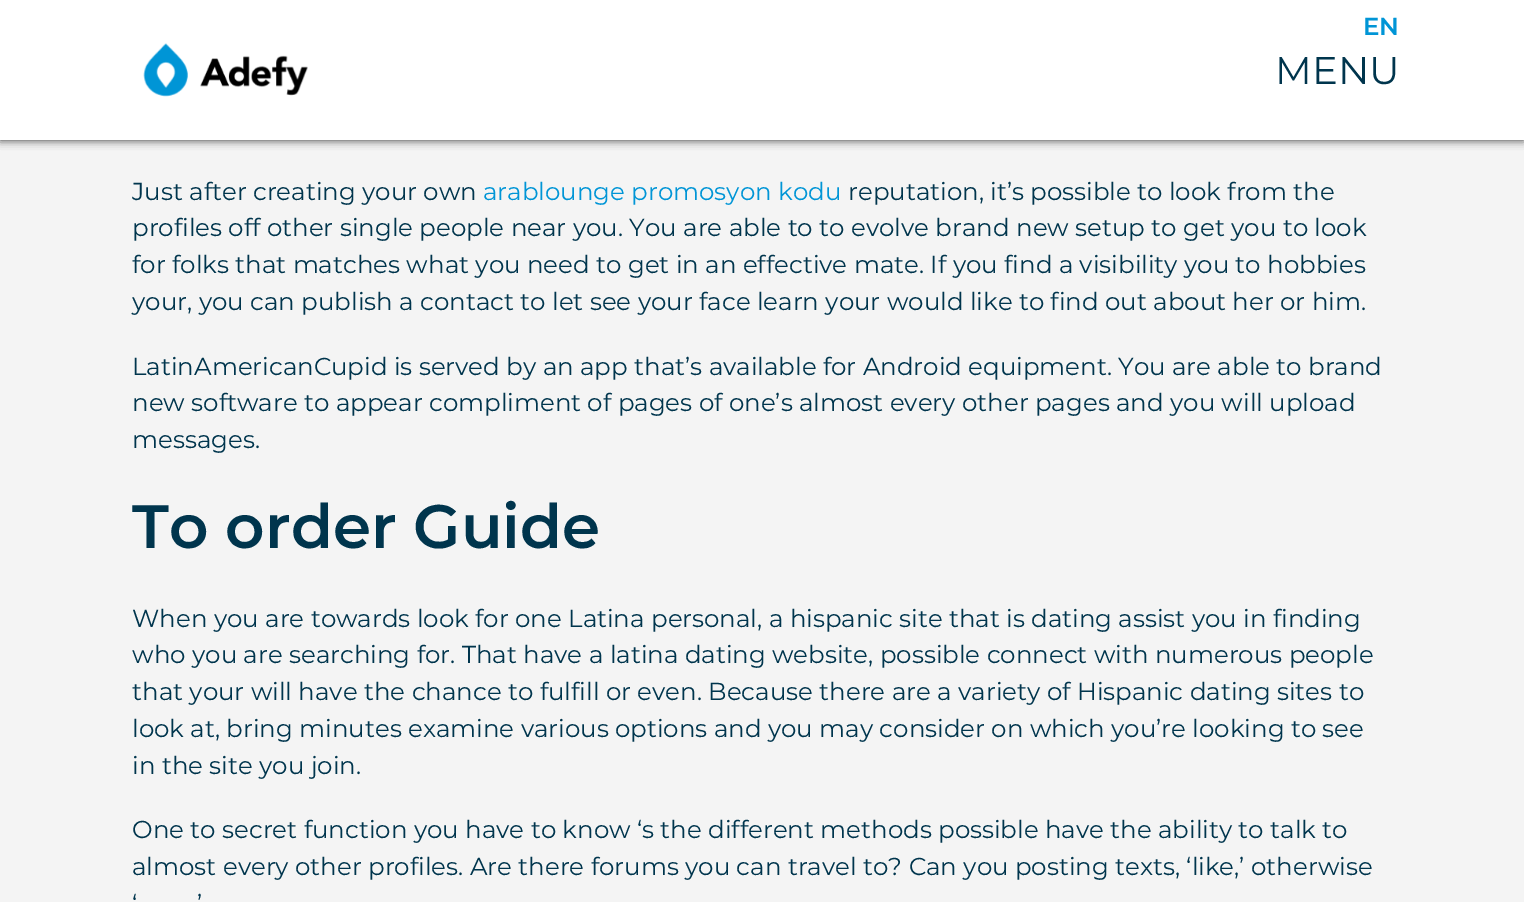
%!PS
<< /PageSize [1524 902] /PageUsesTransparency true >> setpagedevice
/co { dup -16 bitshift 255 div exch dup -8 bitshift 255 and 255 div exch 255 and 255 div setrgbcolor } def
/fn { [ exch dup neg 0 0 3 -1 roll 0 0 ] selectfont } def
/tx { co fn moveto show } def
/bx { co rectfill } def
/al { dup .setfillconstantalpha .setstrokeconstantalpha } def
/rr { 5 dict begin { /r /h /w /y /x } { exch def } forall
  x r add y moveto x w add y 2 copy h add r arct x w add y h add x 1 index r arct
  x y h add x y r arct x y 2 copy exch w add exch r arct closepath end } def
/sh { 12 dict begin { /a /b /q /h /w /y /x } { exch def } forall gsave /was 0 def
  9 -2 -9 { dup b mul 4 div /e exch def 1 sub .425 mul 2.718 exch exp 1 add a .99 .min exch div /now exch def
    1 1 now sub 1 was sub div sub al /was now def
    w h .min e 2 mul add 0 gt { x e sub y e sub w e 2 mul add h e 2 mul add
      q e add b .6 mul add w h .min 2 div e add .min 0 .max rr fill } if } for grestore end } def
/im { 5 dict begin { /h /w /y /x /name } { exch def } forall
  gsave x y translate w h scale
  w h 8 [w 0 0 h 0 0] name (r) file false 3 colorimage grestore end } def
0 .pushpdf14devicefilter
0 902 translate 1 -1 scale
4 setmiterlimit
0 0 1524 902 16#F4F4F4 bx
16#333333 co
0 0 1524 140 0 4.5 1 sh
0 0 1524 140 16#FFFFFF bx
(media/1.raw) 143 43 165 54 im
(EN) 1363 35 /Montserrat-SemiBold 24.5 16#0095D6 tx
(MENU) 1275 84 /Montserrat-Regular 38.5 16#00354D tx
(Just after creating your own) 132 200 /Montserrat-Regular 24.5 16#00354D tx
(arablounge promosyon kodu) 483 200 /Montserrat-Regular 24.5 16#0095D6 tx
(reputation, it’s possible to look from the) 848 200 /Montserrat-Regular 24.5 16#00354D tx
(profiles off other single people near you. You are able to to evolve brand new setup to get you to look) 132 236 /Montserrat-Regular 24.5 16#00354D tx
(for folks that matches what you need to get in an effective mate. If you find a visibility you to hobbies) 132 273 /Montserrat-Regular 24.5 16#00354D tx
(your, you can publish a contact to let see your face learn your would like to find out about her or him.) 132 310 /Montserrat-Regular 24.5 16#00354D tx
(LatinAmericanCupid is served by an app that’s available for Android equipment. You are able to brand) 132 375 /Montserrat-Regular 24.5 16#00354D tx
(new software to appear compliment of pages of one’s almost every other pages and you will upload) 132 411 /Montserrat-Regular 24.5 16#00354D tx
(messages.) 132 448 /Montserrat-Regular 24.5 16#00354D tx
(To order Guide) 132 548 /Montserrat-SemiBold 61.25 16#00354D tx
(When you are towards look for one Latina personal, a hispanic site that is dating assist you in finding) 132 627 /Montserrat-Regular 24.5 16#00354D tx
(who you are searching for. That have a latina dating website, possible connect with numerous people) 132 663 /Montserrat-Regular 24.5 16#00354D tx
(that your will have the chance to fulfill or even. Because there are a variety of Hispanic dating sites to) 132 700 /Montserrat-Regular 24.5 16#00354D tx
(look at, bring minutes examine various options and you may consider on which you’re looking to see) 132 737 /Montserrat-Regular 24.5 16#00354D tx
(in the site you join.) 132 774 /Montserrat-Regular 24.5 16#00354D tx
(One to secret function you have to know ‘s the different methods possible have the ability to talk to) 132 838 /Montserrat-Regular 24.5 16#00354D tx
(almost every other profiles. Are there forums you can travel to? Can you posting texts, ‘like,’ otherwise) 132 875 /Montserrat-Regular 24.5 16#00354D tx
(‘) 132 912 /Montserrat-Regular 24.5 16#00354D tx
(’) 197 912 /Montserrat-Regular 24.5 16#00354D tx
.poppdf14devicefilter showpage
